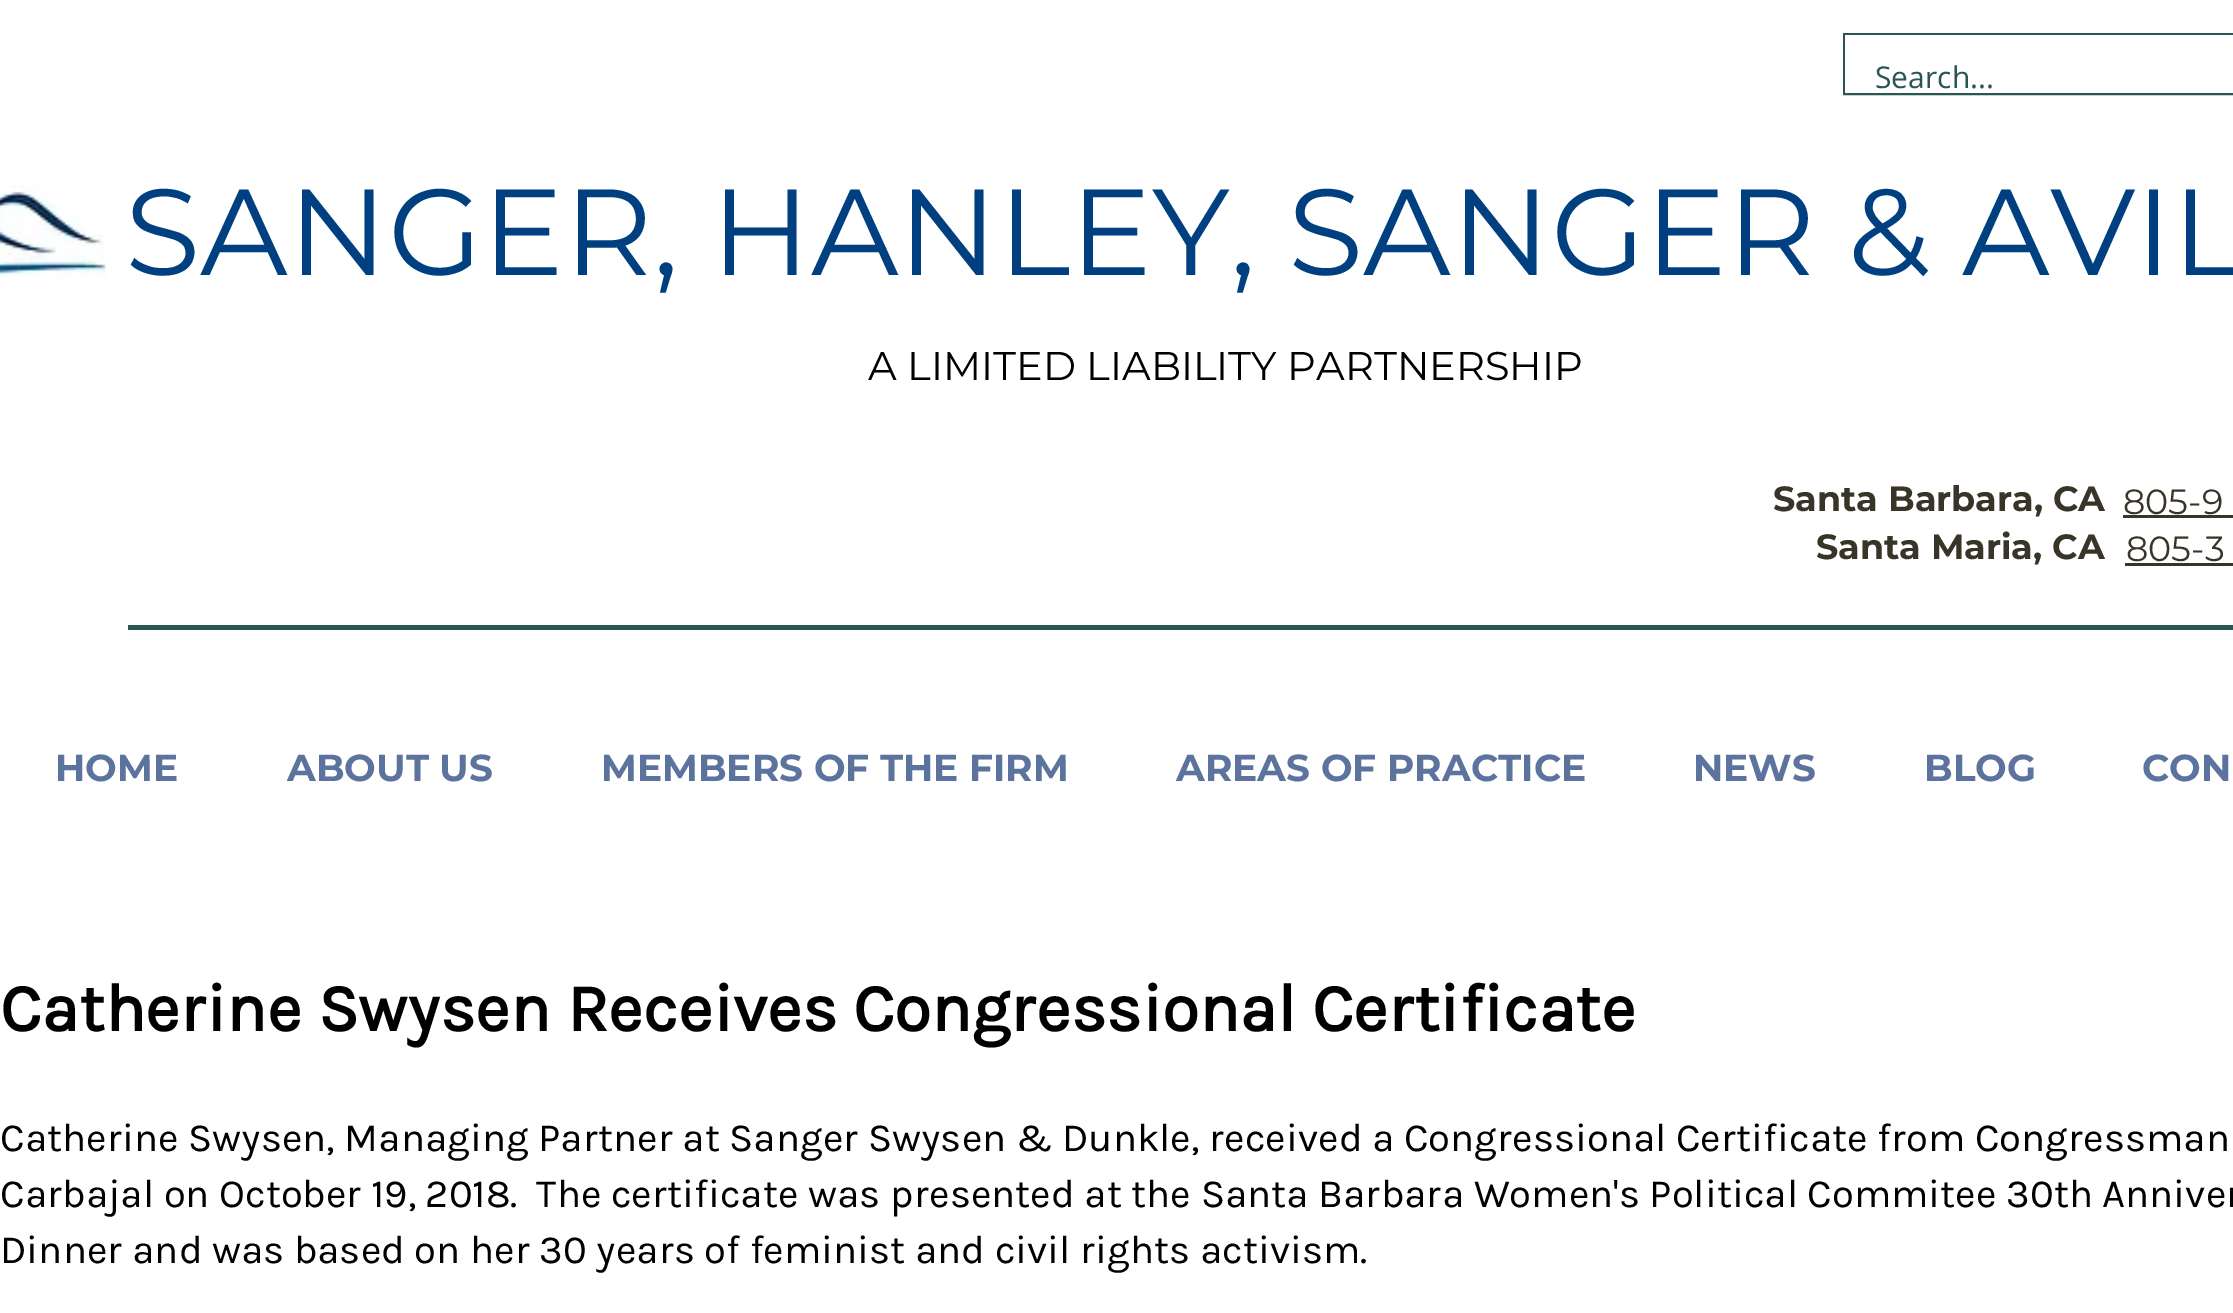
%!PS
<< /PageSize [2233 1313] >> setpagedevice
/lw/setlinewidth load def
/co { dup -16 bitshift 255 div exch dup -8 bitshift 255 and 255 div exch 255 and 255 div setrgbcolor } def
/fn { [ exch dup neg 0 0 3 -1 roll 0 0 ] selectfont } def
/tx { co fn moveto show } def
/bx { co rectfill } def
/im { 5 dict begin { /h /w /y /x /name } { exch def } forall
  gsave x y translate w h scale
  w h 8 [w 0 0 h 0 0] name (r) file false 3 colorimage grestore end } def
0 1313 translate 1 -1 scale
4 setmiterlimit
0 0 2233 1313 16#FFFFFF bx
16#2B5455 co
3 lw
1844.5 34.5 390 59 rectstroke
1845 35 388 58 16#FFFFFF bx
(media/1.raw) 0 185 107 93 im
2123 515 110 3 16#383427 bx
2125 563 108 3 16#383427 bx
128 625 2105 5 16#2B5455 bx
(Search...) 1875 88 /OpenSans-Regular 30 16#2B5455 tx
(SANGER, HANLEY, SANGER & AVIL) 125 275 /Montserrat-Regular 122.5 16#004080 tx
(A LIMITED LIABILITY PARTNERSHIP) 868 380 /Montserrat-Regular 40 16#000000 tx
(Santa Barbara, CA) 1773 511 /Montserrat-Bold 35 16#383427 tx
(Santa Maria, CA) 1816 559 /Montserrat-Bold 35 16#383427 tx
(805-9) 2123 514 /Montserrat-Regular 35 16#383427 tx
(805-3) 2126 561 /Montserrat-Regular 35 16#383427 tx
(HOME) 55 781 /Montserrat-Bold 37.5 16#5C739D tx
(ABOUT US) 287 781 /Montserrat-Bold 37.5 16#5C739D tx
(MEMBERS OF THE FIRM) 601 781 /Montserrat-Bold 37.5 16#5C739D tx
(AREAS OF PRACTICE) 1176 781 /Montserrat-Bold 37.5 16#5C739D tx
(NEWS) 1693 781 /Montserrat-Bold 37.5 16#5C739D tx
(BLOG) 1924 781 /Montserrat-Bold 37.5 16#5C739D tx
(CON) 2142 781 /Montserrat-Bold 37.5 16#5C739D tx
(Catherine Swysen Receives Congressional Certificate) 0 1031 /Karla-Bold 67.5 16#000000 tx
(Catherine Swysen, Managing Partner at Sanger Swysen & Dunkle, received a Congressional Certificate from Congressman) 0 1151 /Karla-Regular 40 16#000000 tx
(Carbajal on October 19, 2018.  The certificate was presented at the Santa Barbara Women's Political Commitee 30th Anniver) 0 1207 /Karla-Regular 40 16#000000 tx
(Dinner and was based on her 30 years of feminist and civil rights activism.) 0 1263 /Karla-Regular 40 16#000000 tx
showpage
